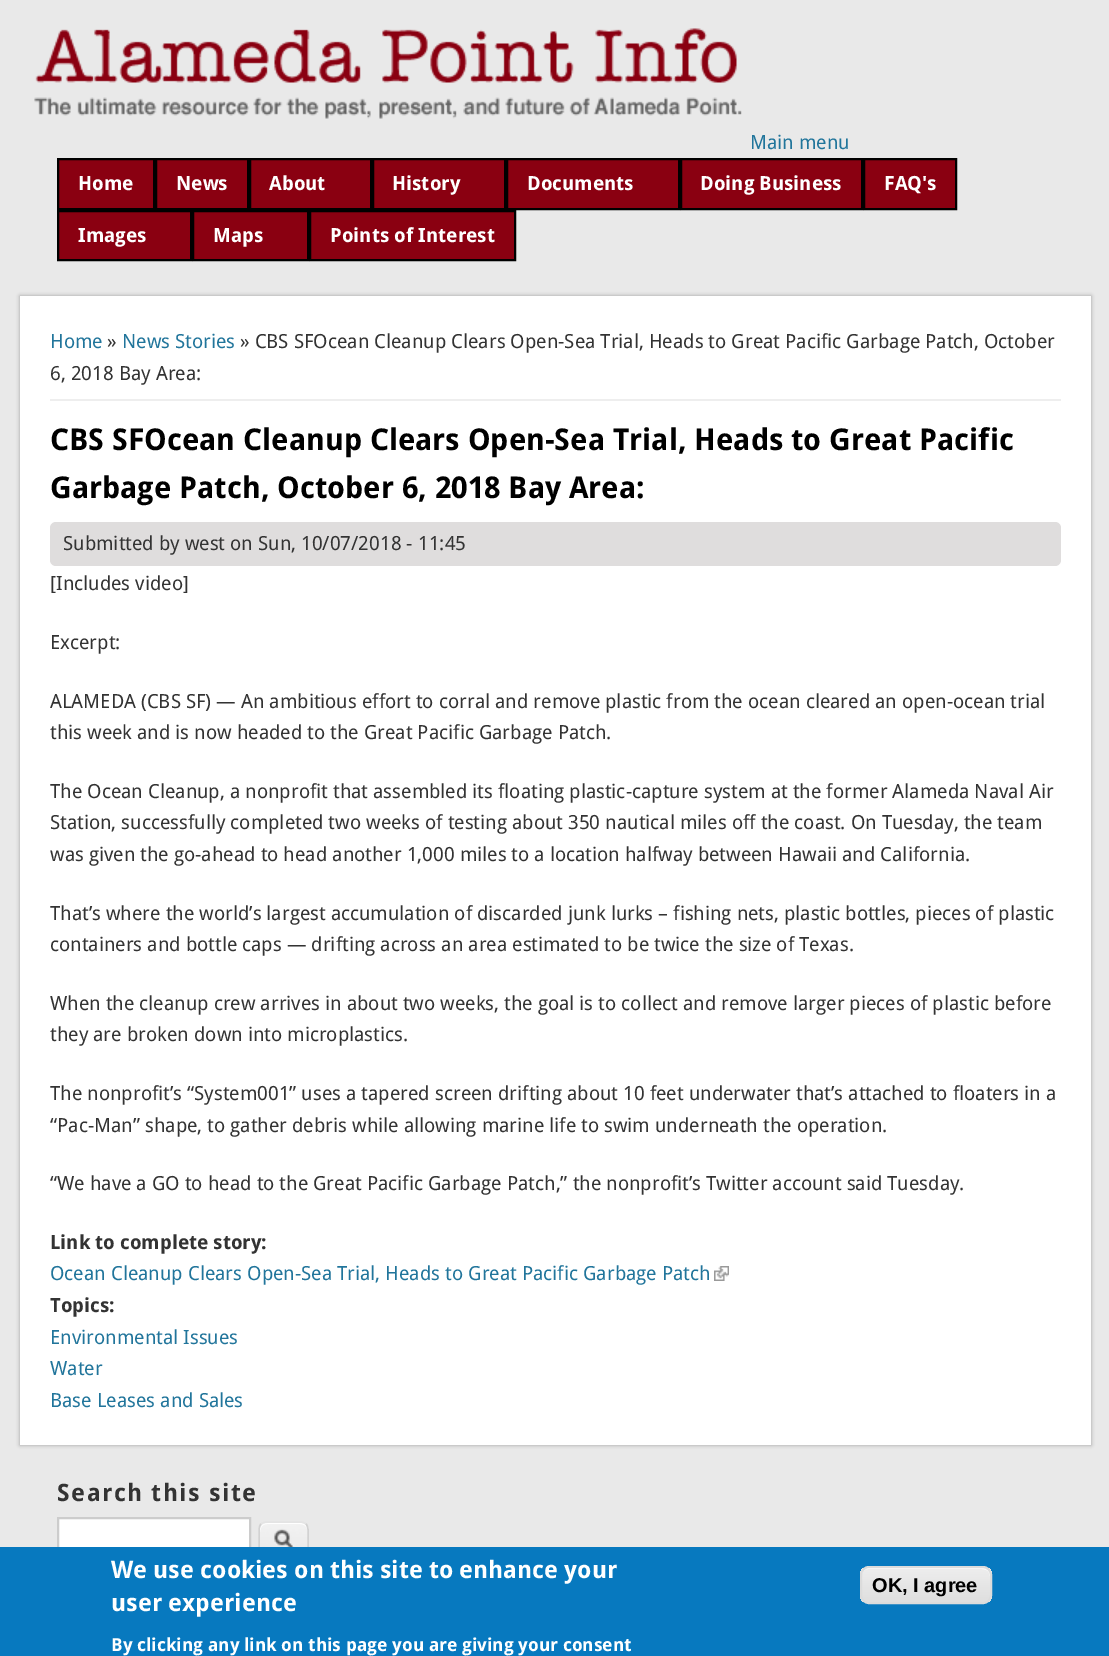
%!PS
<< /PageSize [1109 1656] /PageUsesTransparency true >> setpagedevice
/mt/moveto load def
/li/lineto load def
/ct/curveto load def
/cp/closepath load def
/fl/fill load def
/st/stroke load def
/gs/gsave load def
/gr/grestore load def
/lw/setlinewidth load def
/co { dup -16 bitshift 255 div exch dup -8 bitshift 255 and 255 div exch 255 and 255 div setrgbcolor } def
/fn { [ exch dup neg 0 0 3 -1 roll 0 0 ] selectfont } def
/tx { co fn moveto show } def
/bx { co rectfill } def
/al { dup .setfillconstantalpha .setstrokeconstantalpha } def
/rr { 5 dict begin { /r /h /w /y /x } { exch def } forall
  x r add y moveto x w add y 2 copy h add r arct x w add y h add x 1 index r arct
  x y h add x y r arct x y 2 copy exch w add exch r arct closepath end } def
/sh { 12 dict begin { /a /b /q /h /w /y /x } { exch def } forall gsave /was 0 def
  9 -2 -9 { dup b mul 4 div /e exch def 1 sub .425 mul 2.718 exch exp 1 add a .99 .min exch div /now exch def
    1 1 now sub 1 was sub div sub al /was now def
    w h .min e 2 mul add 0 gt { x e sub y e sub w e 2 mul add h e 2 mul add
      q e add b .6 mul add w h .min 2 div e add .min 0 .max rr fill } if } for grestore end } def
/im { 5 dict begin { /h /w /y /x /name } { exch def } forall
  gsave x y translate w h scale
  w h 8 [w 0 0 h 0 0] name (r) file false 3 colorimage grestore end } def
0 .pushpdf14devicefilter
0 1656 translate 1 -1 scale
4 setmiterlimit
0 0 1109 1656 16#E9E9E9 bx
(media/1.raw) 34 28 708 91 im
16#8A0011 co
58 159 mt 154 159 li 154 209 li 58 209 li cp gs fl gr
16#000000 co
2 lw
st
16#8A0011 co
156 159 mt 248 159 li 248 209 li 156 209 li cp gs fl gr
16#000000 co
st
16#8A0011 co
250 159 mt 371 159 li 371 209 li 250 209 li cp gs fl gr
16#000000 co
st
16#8A0011 co
373 159 mt 505 159 li 505 209 li 373 209 li cp gs fl gr
16#000000 co
st
16#8A0011 co
507 159 mt 679 159 li 679 209 li 507 209 li cp gs fl gr
16#000000 co
st
16#8A0011 co
681 159 mt 862 159 li 862 209 li 681 209 li cp gs fl gr
16#000000 co
st
16#8A0011 co
864 159 mt 956 159 li 956 209 li 864 209 li cp gs fl gr
16#000000 co
st
16#8A0011 co
58 211 mt 191 211 li 191 260 li 58 260 li cp gs fl gr
16#000000 co
st
16#8A0011 co
193 211 mt 308 211 li 308 260 li 193 260 li cp gs fl gr
16#000000 co
st
16#8A0011 co
310 211 mt 515 211 li 515 260 li 310 260 li cp gs fl gr
16#000000 co
st
16#999999 co
20 296 1071 1149 0 2 1 sh
20 296 1071 1149 16#FFFFFF bx
50 399 1011 2 16#EEEEEE bx
16#DFDDDD co
50 522 1011 44 6 rr fl
(media/2.raw) 714 1266 15 15 im
59 1519 190 28 16#FFFFFF bx
16#CCCCCC co
58 1518 192 34 rectstroke
(media/3.raw) 258 1522 51 25 im
16#FFFFFF co
267 1524 mt 300 1524 li 304 1524 308 1527 308 1532 ct 308 1523 302 1523 295 1523 ct 273 1523 li 266 1523 260 1523 260 1532 ct 260 1527 263 1524 267 1524 ct cp fl
16#E4E4E4 co
1.5 lw
261 1524 mt 262.5 1522.5 265 1522 267 1522 ct 300 1522 li 302 1522 304.5 1522.5 306 1524 ct st
16#D2D2D2 co
306 1524 mt 307.5 1525.5 308 1528 308 1530 ct 308 1549.5 li 308 1551.5 307.5 1554 306 1555.5 ct 261 1555.5 mt 259.5 1554 259 1551.5 259 1549.5 ct 259 1530 li 259 1528 259.5 1525.5 261 1524 ct st
0 1547 1109 109 16#0779BF bx
gs
860 1566 132 38 9 rr clip newpath
gs 860 1568 mt 992 1568 li 992 1602 li 860 1602 li cp clip newpath
<< /ShadingType 2 /ColorSpace /DeviceRGB /Coords [926 1568 926 1602] /Extend [true true] /Function << /FunctionType 3 /Domain [0 1] /Functions [<< /FunctionType 2 /Domain [0 1] /C0 [.929 .929 .929] /C1 [.929 .929 .929] /N 1 >> << /FunctionType 2 /Domain [0 1] /C0 [.929 .929 .929] /C1 [.875 .875 .875] /N 1 >>] /Bounds [.05] /Encode [0 1 0 1] >> >> shfill gr
gr
16#FFFFFF co
868 1569 mt 982 1569 li 987 1569 990 1572 990 1576 ct 990 1572 986 1568 982 1568 ct 869 1568 li 865 1568 861 1572 861 1576 ct 861 1572 864 1569 868 1569 ct cp fl
16#DCDCDC co
2 lw
861 1567 130 36 8 rr st
(Main menu) 750 149 /DroidSans-Regular 19.5 16#21759B tx
(Home) 78 190 /DroidSans-Bold 19.5 16#FFFFFF tx
(News) 176 190 /DroidSans-Bold 19.5 16#FFFFFF tx
(About) 269 190 /DroidSans-Bold 19.5 16#FFFFFF tx
(History) 392 190 /DroidSans-Bold 19.5 16#FFFFFF tx
(Documents) 527 190 /DroidSans-Bold 19.5 16#FFFFFF tx
(Doing Business) 700 190 /DroidSans-Bold 19.5 16#FFFFFF tx
(FAQ's) 884 190 /DroidSans-Bold 19.5 16#FFFFFF tx
(Images) 78 242 /DroidSans-Bold 19.5 16#FFFFFF tx
(Maps) 213 242 /DroidSans-Bold 19.5 16#FFFFFF tx
(Points of Interest) 330 242 /DroidSans-Bold 19.5 16#FFFFFF tx
(Home) 50 348 /DroidSans-Regular 19.5 16#21759B tx
(») 107 348 /DroidSans-Regular 19.5 16#333333 tx
(News Stories) 122 348 /DroidSans-Regular 19.5 16#21759B tx
(» CBS SFOcean Cleanup Clears Open-Sea Trial, Heads to Great Pacific Garbage Patch, October) 240 348 /DroidSans-Regular 19.5 16#333333 tx
(6, 2018 Bay Area:) 50 380 /DroidSans-Regular 19.5 16#333333 tx
(CBS SFOcean Cleanup Clears Open-Sea Trial, Heads to Great Pacific) 50 450 /DroidSans-Bold 30 16#000000 tx
(Garbage Patch, October 6, 2018 Bay Area:) 50 498 /DroidSans-Bold 30 16#000000 tx
(Submitted by west on Sun, 10/07/2018 - 11:45) 63 550 /DroidSans-Regular 19.5 16#333333 tx
([Includes video]) 50 590 /DroidSans-Regular 19.5 16#333333 tx
(Excerpt:) 50 649 /DroidSans-Regular 19.5 16#333333 tx
(ALAMEDA \(CBS SF\) — An ambitious effort to corral and remove plastic from the ocean cleared an open-ocean trial) 50 708 /DroidSans-Regular 19.5 16#333333 tx
(this week and is now headed to the Great Pacific Garbage Patch.) 50 739 /DroidSans-Regular 19.5 16#333333 tx
(The Ocean Cleanup, a nonprofit that assembled its floating plastic-capture system at the former Alameda Naval Air) 50 798 /DroidSans-Regular 19.5 16#333333 tx
(Station, successfully completed two weeks of testing about 350 nautical miles off the coast. On Tuesday, the team) 50 829 /DroidSans-Regular 19.5 16#333333 tx
(was given the go-ahead to head another 1,000 miles to a location halfway between Hawaii and California.) 50 861 /DroidSans-Regular 19.5 16#333333 tx
(That’s where the world’s largest accumulation of discarded junk lurks – fishing nets, plastic bottles, pieces of plastic) 50 920 /DroidSans-Regular 19.5 16#333333 tx
(containers and bottle caps — drifting across an area estimated to be twice the size of Texas.) 50 951 /DroidSans-Regular 19.5 16#333333 tx
(When the cleanup crew arrives in about two weeks, the goal is to collect and remove larger pieces of plastic before) 50 1010 /DroidSans-Regular 19.5 16#333333 tx
(they are broken down into microplastics.) 50 1041 /DroidSans-Regular 19.5 16#333333 tx
(The nonprofit’s “System001” uses a tapered screen drifting about 10 feet underwater that’s attached to floaters in a) 50 1100 /DroidSans-Regular 19.5 16#333333 tx
(“Pac-Man” shape, to gather debris while allowing marine life to swim underneath the operation.) 50 1132 /DroidSans-Regular 19.5 16#333333 tx
(“We have a GO to head to the Great Pacific Garbage Patch,” the nonprofit’s Twitter account said Tuesday.) 50 1190 /DroidSans-Regular 19.5 16#333333 tx
(Link to complete story:) 50 1249 /DroidSans-Bold 19.5 16#333333 tx
(Ocean Cleanup Clears Open-Sea Trial, Heads to Great Pacific Garbage Patch) 50 1280 /DroidSans-Regular 19.5 16#21759B tx
(Topics:) 50 1312 /DroidSans-Bold 19.5 16#333333 tx
(Environmental Issues) 50 1344 /DroidSans-Regular 19.5 16#21759B tx
(Water) 50 1375 /DroidSans-Regular 19.5 16#21759B tx
(Base Leases and Sales) 50 1407 /DroidSans-Regular 19.5 16#21759B tx
/DroidSans-Bold 24 fn
16#333333 co
57 1501 mt 1.5 0 (Search this site) ashow
(We use cookies on this site to enhance your) 111 1578 /DroidSans-Bold 24 16#FFFFFF tx
(user experience) 111 1611 /DroidSans-Bold 24 16#FFFFFF tx
(By clicking any link on this page you are giving your consent) 111 1651 /DroidSans-Bold 18 16#FFFFFF tx
(OK, I agree) 872 1592 /LiberationSans-Bold 20 16#000000 tx
.poppdf14devicefilter showpage
